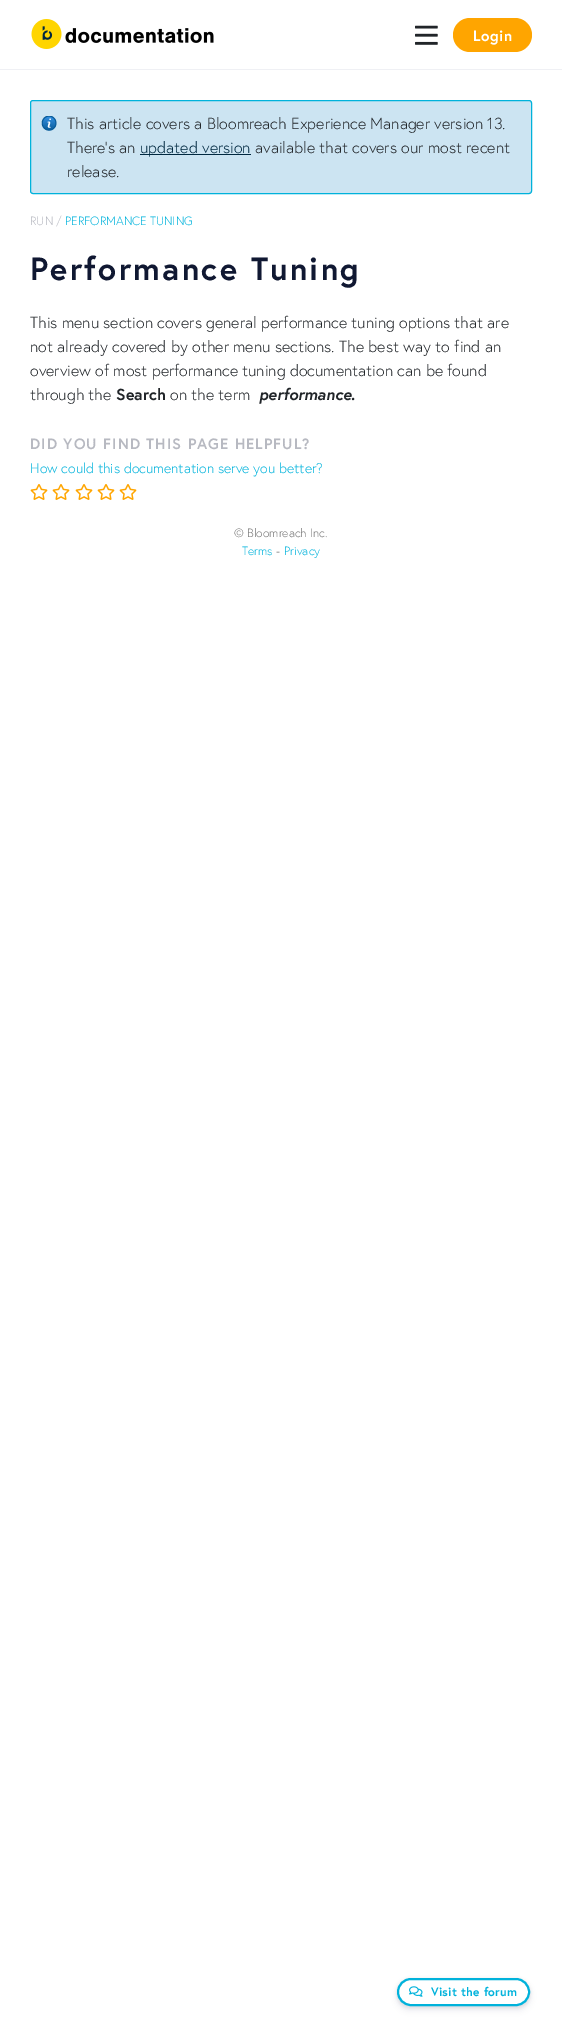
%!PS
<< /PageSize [562 2030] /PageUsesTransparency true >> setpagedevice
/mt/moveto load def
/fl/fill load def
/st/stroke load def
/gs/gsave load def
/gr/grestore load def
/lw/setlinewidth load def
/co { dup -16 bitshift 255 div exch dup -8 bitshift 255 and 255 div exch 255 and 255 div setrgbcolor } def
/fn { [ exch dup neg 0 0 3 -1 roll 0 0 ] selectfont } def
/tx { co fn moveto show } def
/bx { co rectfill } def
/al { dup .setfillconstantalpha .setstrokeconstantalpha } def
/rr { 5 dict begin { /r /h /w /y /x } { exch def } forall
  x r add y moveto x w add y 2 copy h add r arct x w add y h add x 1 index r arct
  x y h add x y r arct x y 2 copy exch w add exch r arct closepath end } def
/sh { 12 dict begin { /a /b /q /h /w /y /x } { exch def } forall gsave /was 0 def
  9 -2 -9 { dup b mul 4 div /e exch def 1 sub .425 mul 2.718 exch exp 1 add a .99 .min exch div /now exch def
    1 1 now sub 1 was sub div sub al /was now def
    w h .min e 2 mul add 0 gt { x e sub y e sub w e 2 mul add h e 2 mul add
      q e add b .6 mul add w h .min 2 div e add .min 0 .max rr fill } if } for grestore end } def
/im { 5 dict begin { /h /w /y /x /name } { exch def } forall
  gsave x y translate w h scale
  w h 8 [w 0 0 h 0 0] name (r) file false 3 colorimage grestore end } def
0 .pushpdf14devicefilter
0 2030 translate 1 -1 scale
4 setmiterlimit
0 0 562 2030 16#FFFFFF bx
0 69 562 1 16#EFF0F4 bx
(media/1.raw) 31 19 183 30 im
(media/2.raw) 415 25 23 20 im
16#FFA500 co
453 18 79 34 17 rr fl
16#CCE4F2 co
30 100 502 94 3 rr fl
(media/3.raw) 41 116 16 15 im
16#00B2DB co
30.5 100.5 501 93 2.5 rr st
140 154 111 1 16#002840 bx
(media/4.raw) 30 484 18 16 im
(media/4.raw) 52 484 18 16 im
(media/4.raw) 75 484 18 16 im
(media/4.raw) 97 484 18 16 im
(media/4.raw) 119 484 18 16 im
16#000000 co
397 1979 133 28 14 1.5 .08 sh
16#32325D co
397 1982 133 28 14 3 .11 sh
16#FFFFFF co
398 1979 131 26 13 rr gs fl gr
16#00B2DB co
2 lw
st
(media/5.raw) 409 1986 14 11 im
/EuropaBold-Bold 15 fn
16#FFFFFF co
473 41 mt .5 0 (Login) ashow
(This article covers a Bloomreach Experience Manager version 13.) 67 129 /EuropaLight-Light 16 16#212529 tx
(There's an) 67 153 /EuropaLight-Light 16 16#212529 tx
(updated version) 140 153 /EuropaLight-Light 16 16#002840 tx
(available that covers our most recent) 255 153 /EuropaLight-Light 16 16#212529 tx
(release.) 67 177 /EuropaLight-Light 16 16#212529 tx
(RUN /) 30 225 /EuropaLight-Light 12 16#B7B9C1 tx
(PERFORMANCE TUNING) 65 225 /EuropaLight-Light 12 16#00B2DB tx
/EuropaBold-Bold 32 fn
16#101832 co
30 280 mt 2.25 0 (Performance Tuning) ashow
(This menu section covers general performance tuning options that are) 30 328 /EuropaLight-Light 16 16#212529 tx
(not already covered by other menu sections. The best way to find an) 30 352 /EuropaLight-Light 16 16#212529 tx
(overview of most performance tuning documentation can be found) 30 376 /EuropaLight-Light 16 16#212529 tx
(through the) 30 400 /EuropaLight-Light 16 16#212529 tx
(Search) 116 400 /EuropaBold-Bold 16 16#212529 tx
(on the term) 170 400 /EuropaLight-Light 16 16#212529 tx
(performance) 259 400 /EuropaBold-BoldItalic 16 16#212529 tx
(.) 351 400 /EuropaBold-Bold 16 16#212529 tx
/EuropaBold-Bold 15 fn
16#B7B9C1 co
30 449 mt 1.05 0 (DID YOU FIND THIS PAGE HELPFUL?) ashow
(How could this documentation serve you better?) 30 473 /EuropaLight-Light 14 16#00B2DB tx
(© Bloomreach Inc.) 234 537 /EuropaLight-Light 12 16#787878 tx
(Terms) 242 555 /EuropaLight-Light 12 16#00B2DB tx
(-) 276 555 /EuropaLight-Light 12 16#787878 tx
(Privacy) 284 555 /EuropaLight-Light 12 16#00B2DB tx
/EuropaBold-Bold 12 fn
431 1996 mt .25 0 (Visit the forum) ashow
.poppdf14devicefilter showpage
